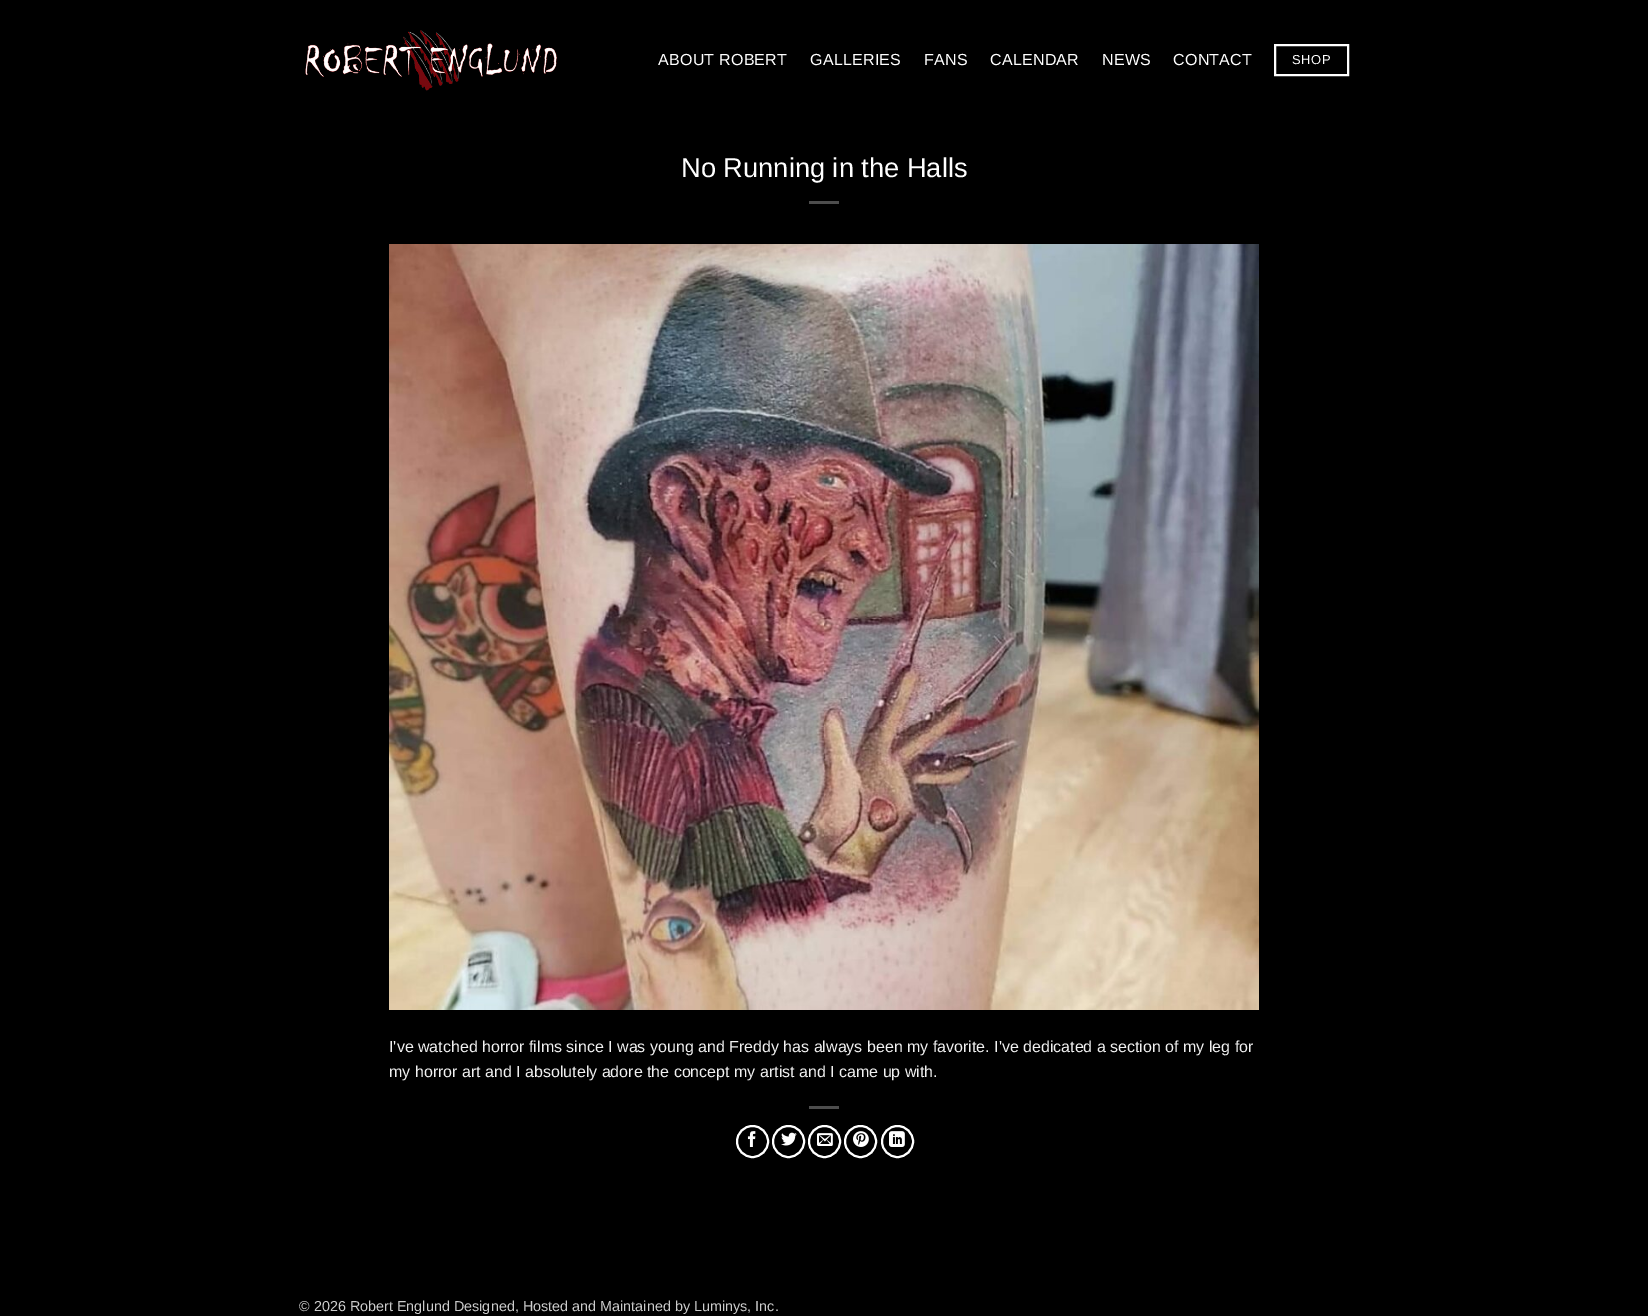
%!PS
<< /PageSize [1648 1316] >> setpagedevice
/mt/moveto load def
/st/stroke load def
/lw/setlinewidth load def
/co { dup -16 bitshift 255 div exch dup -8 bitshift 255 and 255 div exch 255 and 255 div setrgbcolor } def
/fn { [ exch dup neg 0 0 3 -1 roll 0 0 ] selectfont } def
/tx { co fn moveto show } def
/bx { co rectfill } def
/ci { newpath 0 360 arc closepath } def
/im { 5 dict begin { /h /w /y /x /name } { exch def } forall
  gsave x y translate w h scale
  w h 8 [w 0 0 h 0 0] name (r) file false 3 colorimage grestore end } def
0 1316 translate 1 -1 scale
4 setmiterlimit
0 0 1648 1316 16#000000 bx
(media/1.raw) 305 30 252 61 im
16#FFFFFF co
2 lw
1275 45 73 30 rectstroke
809 201 30 3 16#4D4D4D bx
(media/2.raw) 389 244 870 766 im
809 1106 30 3 16#4D4D4D bx
16#FFFFFF co
752.5 1141.5 15.5 ci st
(media/3.raw) 747 1131 9 16 im
788.5 1141.5 15.5 ci st
(media/4.raw) 781 1132 16 14 im
824.5 1141.5 15.5 ci st
(media/5.raw) 817 1133 16 13 im
860.5 1141.5 15.5 ci st
(media/6.raw) 853 1131 16 16 im
897.5 1141.5 15.5 ci st
(media/7.raw) 889 1131 16 16 im
/LiberationSans-Regular 16 fn
658 65 mt .25 0 (ABOUT ROBERT) ashow
810 65 mt .25 0 (GALLERIES) ashow
924 65 mt .25 0 (FANS) ashow
990 65 mt .25 0 (CALENDAR) ashow
1102 65 mt .25 0 (NEWS) ashow
1173 65 mt .25 0 (CONTACT) ashow
/LiberationSans-Regular 13 fn
1292 64 mt .5 0 (SHOP) ashow
(No Running in the Halls) 681 177 /LiberationSans-Regular 27.25 16#FFFFFF tx
(I've watched horror films since I was young and Freddy has always been my favorite. I've dedicated a section of my leg for) 389 1052 /LiberationSans-Regular 16 16#F1F1F1 tx
(my horror art and I absolutely adore the concept my artist and I came up with.) 389 1077 /LiberationSans-Regular 16 16#F1F1F1 tx
(© 2026 Robert Englund Designed, Hosted and Maintained by Luminys, Inc.) 299 1311 /LiberationSans-Regular 14.4 16#CCCCCC tx
showpage
